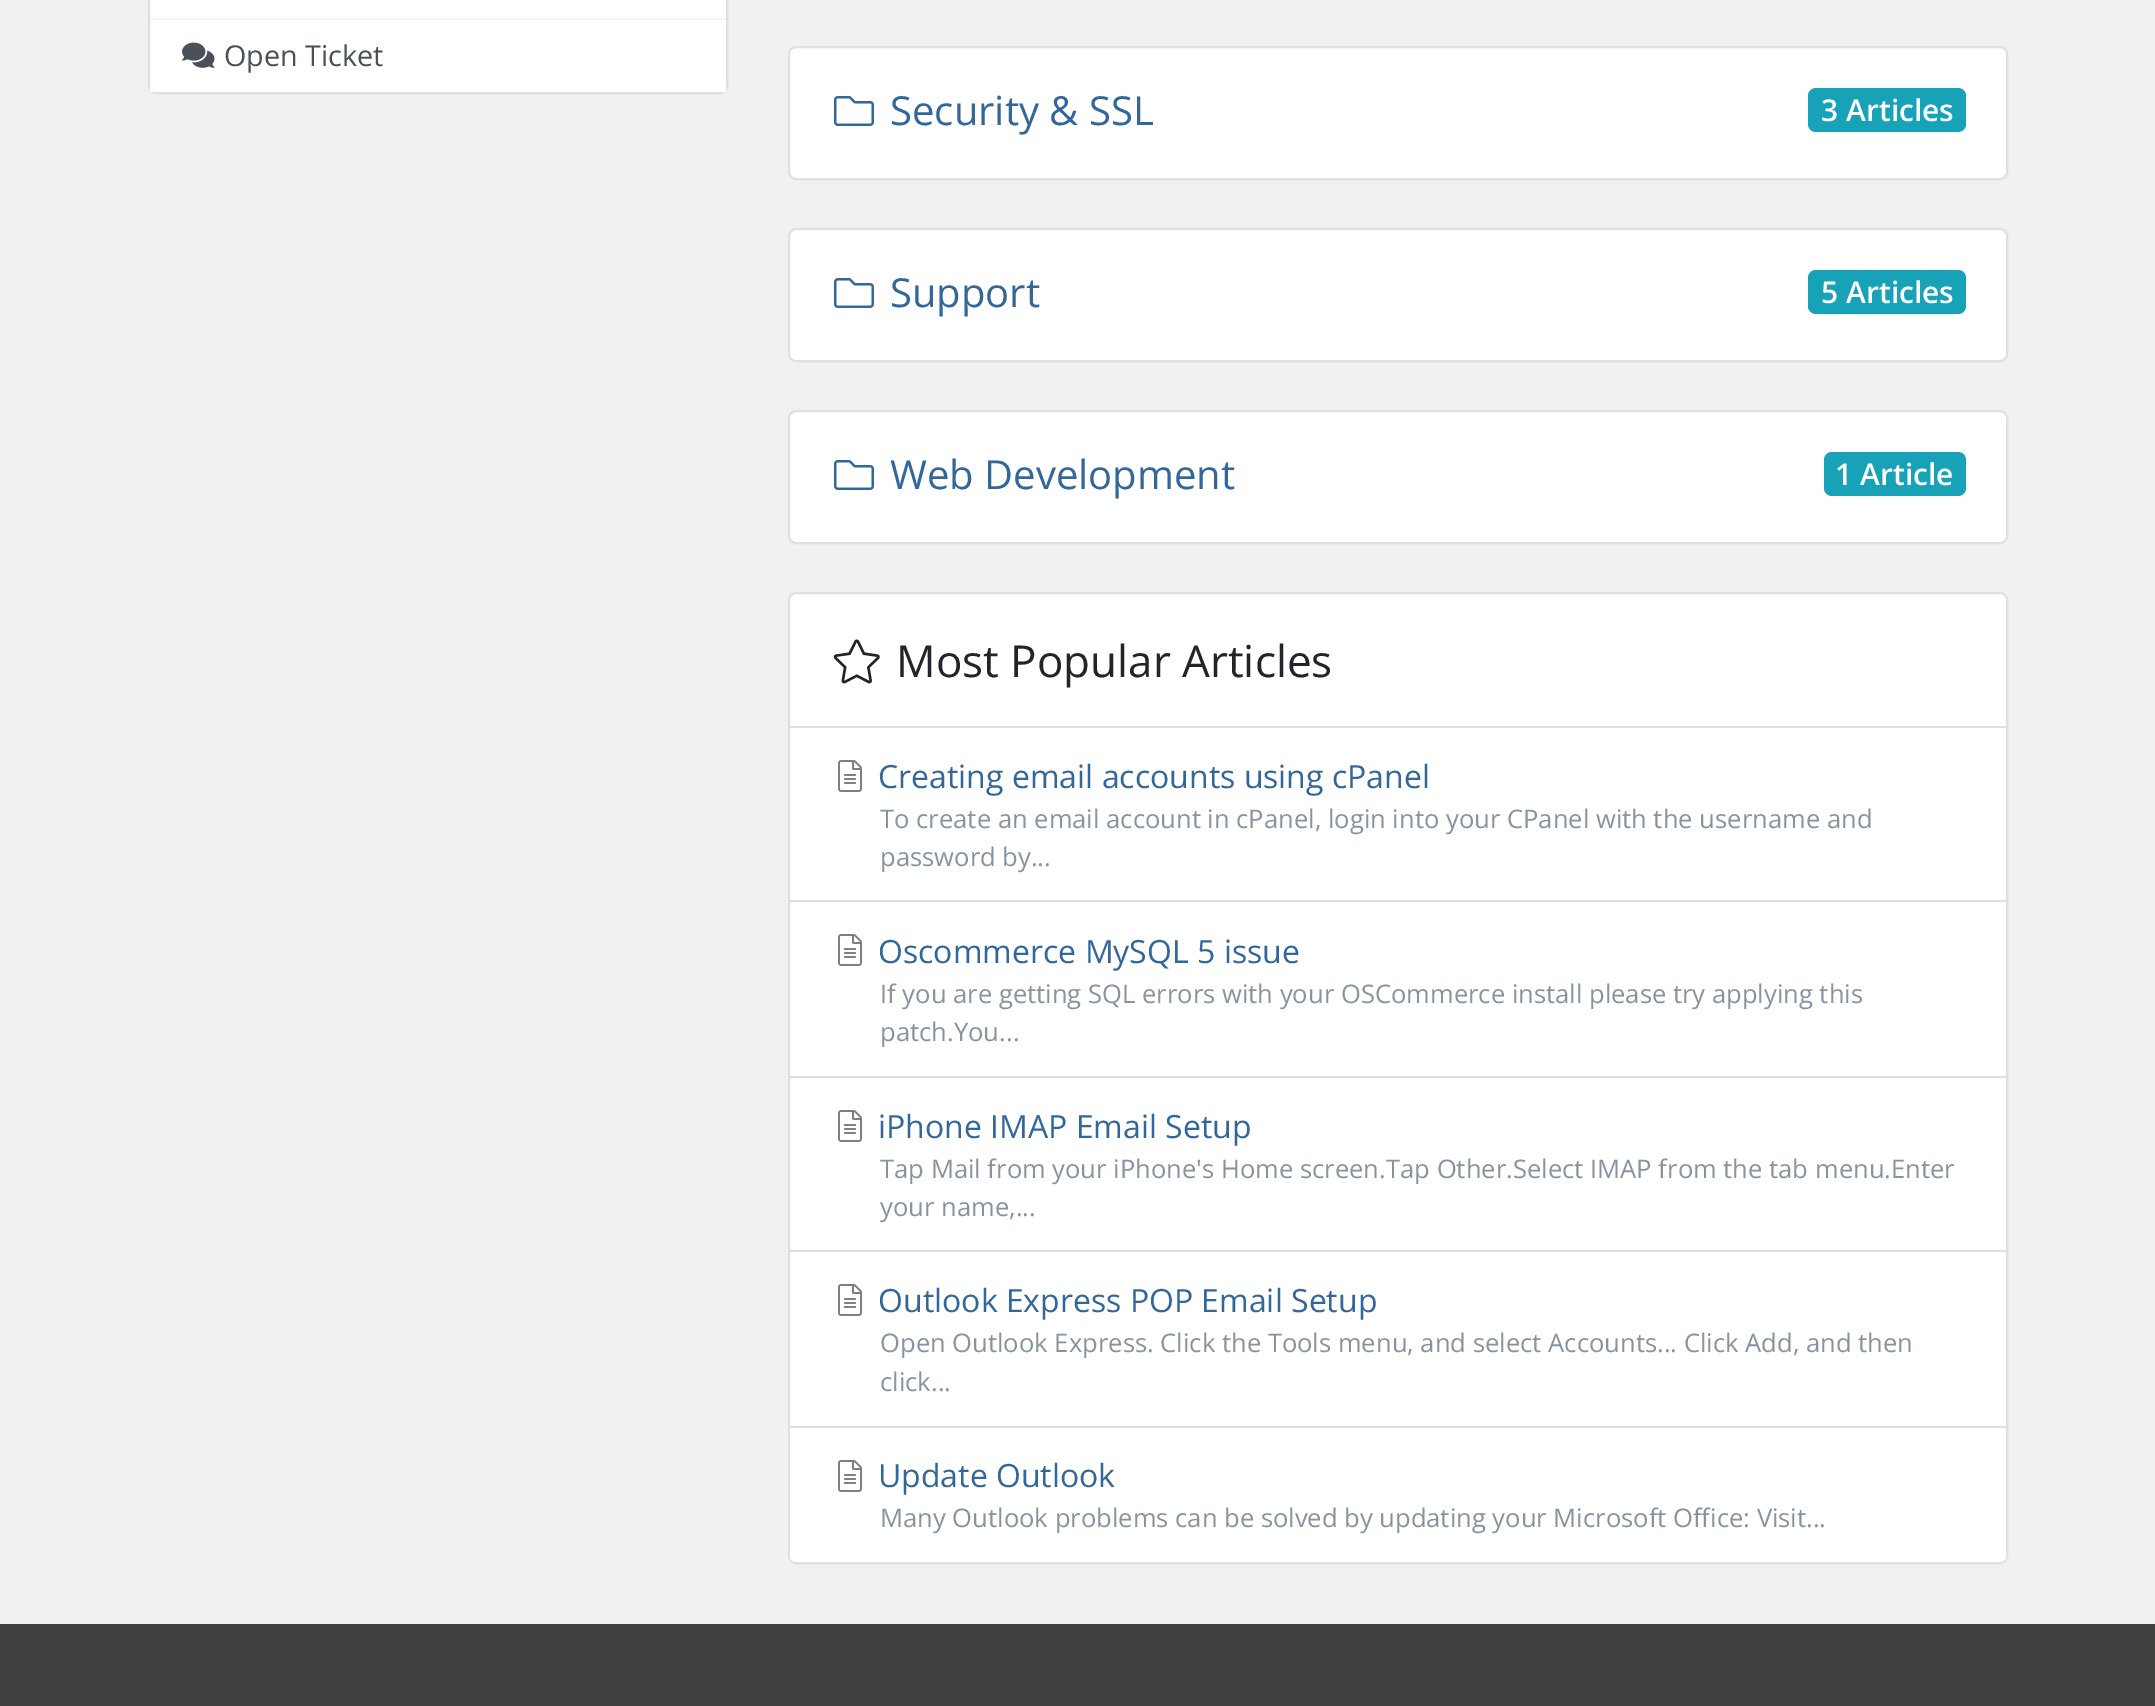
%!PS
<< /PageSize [2155 1706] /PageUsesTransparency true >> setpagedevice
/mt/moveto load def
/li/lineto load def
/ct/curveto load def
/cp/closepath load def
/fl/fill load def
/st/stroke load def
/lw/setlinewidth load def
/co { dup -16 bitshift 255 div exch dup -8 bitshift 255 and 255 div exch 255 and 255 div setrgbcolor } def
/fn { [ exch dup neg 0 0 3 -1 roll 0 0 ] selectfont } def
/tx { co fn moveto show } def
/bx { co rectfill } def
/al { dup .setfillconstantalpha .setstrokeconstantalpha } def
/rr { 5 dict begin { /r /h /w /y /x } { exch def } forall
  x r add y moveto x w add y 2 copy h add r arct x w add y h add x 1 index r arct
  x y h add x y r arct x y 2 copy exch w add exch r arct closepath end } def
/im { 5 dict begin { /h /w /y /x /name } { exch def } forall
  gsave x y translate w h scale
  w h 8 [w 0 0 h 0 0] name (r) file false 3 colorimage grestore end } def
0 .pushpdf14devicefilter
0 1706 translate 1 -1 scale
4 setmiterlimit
0 0 2155 1706 16#F1F1F1 bx
16#FFFFFF co
148 -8 580 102 8 rr fl
0.12 al
16#000000 co
2 lw
149 -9 578 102 7 rr st
1 al
150 18 576 2 16#F5F5F5 bx
150 87 576 5 16#FFFFFF bx
(media/1.raw) 182 42 33 26 im
788 46 1220 134 8 rr fl
0.12 al
16#000000 co
789 47 1218 132 7 rr st
1 al
(media/2.raw) 834 96 40 30 im
16#17A2B8 co
1808 88 158 44 8 rr fl
16#FFFFFF co
788 228 1220 134 8 rr fl
0.12 al
16#000000 co
789 229 1218 132 7 rr st
1 al
(media/2.raw) 834 278 40 30 im
16#17A2B8 co
1808 270 158 44 8 rr fl
16#FFFFFF co
788 410 1220 134 8 rr fl
0.12 al
16#000000 co
789 411 1218 132 7 rr st
1 al
(media/2.raw) 834 460 40 30 im
16#17A2B8 co
1824 452 142 44 8 rr fl
16#FFFFFF co
788 592 1220 972 8 rr fl
0.12 al
16#000000 co
789 593 1218 970 7 rr st
1 al
(media/3.raw) 833 639 47 45 im
790 726 1216 2 16#DFDFDF bx
790 900 1216 2 16#DFDFDF bx
(media/4.raw) 838 760 24 32 im
790 1076 1216 2 16#DFDFDF bx
(media/4.raw) 838 934 24 32 im
790 1250 1216 2 16#DFDFDF bx
(media/4.raw) 838 1110 24 32 im
790 1426 1216 2 16#DFDFDF bx
(media/4.raw) 838 1284 24 32 im
16#FFFFFF co
790 1428 mt 2006 1428 li 2006 1556 li 2006 1559.5 2003.5 1562 2000 1562 ct 796 1562 li 792.5 1562 790 1559.5 790 1556 ct cp fl
(media/4.raw) 838 1460 24 32 im
0 1624 2155 82 16#404040 bx
(Open Ticket) 224 66 /OpenSans-Regular 28.75 16#495057 tx
(Security & SSL) 890 125 /OpenSans-Regular 40 16#336699 tx
(3 Articles) 1821 121 /OpenSans-SemiBold 30 16#FFFFFF tx
(Support) 890 307 /OpenSans-Regular 40 16#336699 tx
(5 Articles) 1821 303 /OpenSans-SemiBold 30 16#FFFFFF tx
(Web Development) 890 489 /OpenSans-Regular 40 16#336699 tx
(1 Article) 1835 485 /OpenSans-SemiBold 30 16#FFFFFF tx
(Most Popular Articles) 896 677 /OpenSans-Regular 44 16#212529 tx
(Creating email accounts using cPanel) 878 788 /OpenSans-Regular 32 16#336699 tx
(To create an email account in cPanel, login into your CPanel with the username and) 880 828 /OpenSans-Regular 25.6 16#87939F tx
(password by...) 880 866 /OpenSans-Regular 25.6 16#87939F tx
(Oscommerce MySQL 5 issue) 878 963 /OpenSans-Regular 32 16#336699 tx
(If you are getting SQL errors with your OSCommerce install please try applying this) 880 1003 /OpenSans-Regular 25.6 16#87939F tx
(patch.You...) 880 1041 /OpenSans-Regular 25.6 16#87939F tx
(iPhone IMAP Email Setup) 878 1138 /OpenSans-Regular 32 16#336699 tx
(Tap Mail from your iPhone's Home screen.Tap Other.Select IMAP from the tab menu.Enter) 880 1178 /OpenSans-Regular 25.6 16#87939F tx
(your name,...) 880 1216 /OpenSans-Regular 25.6 16#87939F tx
(Outlook Express POP Email Setup) 878 1312 /OpenSans-Regular 32 16#336699 tx
(Open Outlook Express. Click the Tools menu, and select Accounts... Click Add, and then) 880 1352 /OpenSans-Regular 25.6 16#87939F tx
(click...) 880 1391 /OpenSans-Regular 25.6 16#87939F tx
(Update Outlook) 878 1487 /OpenSans-Regular 32 16#336699 tx
(Many Outlook problems can be solved by updating your Microsoft Office: Visit...) 880 1527 /OpenSans-Regular 25.6 16#87939F tx
.poppdf14devicefilter showpage
